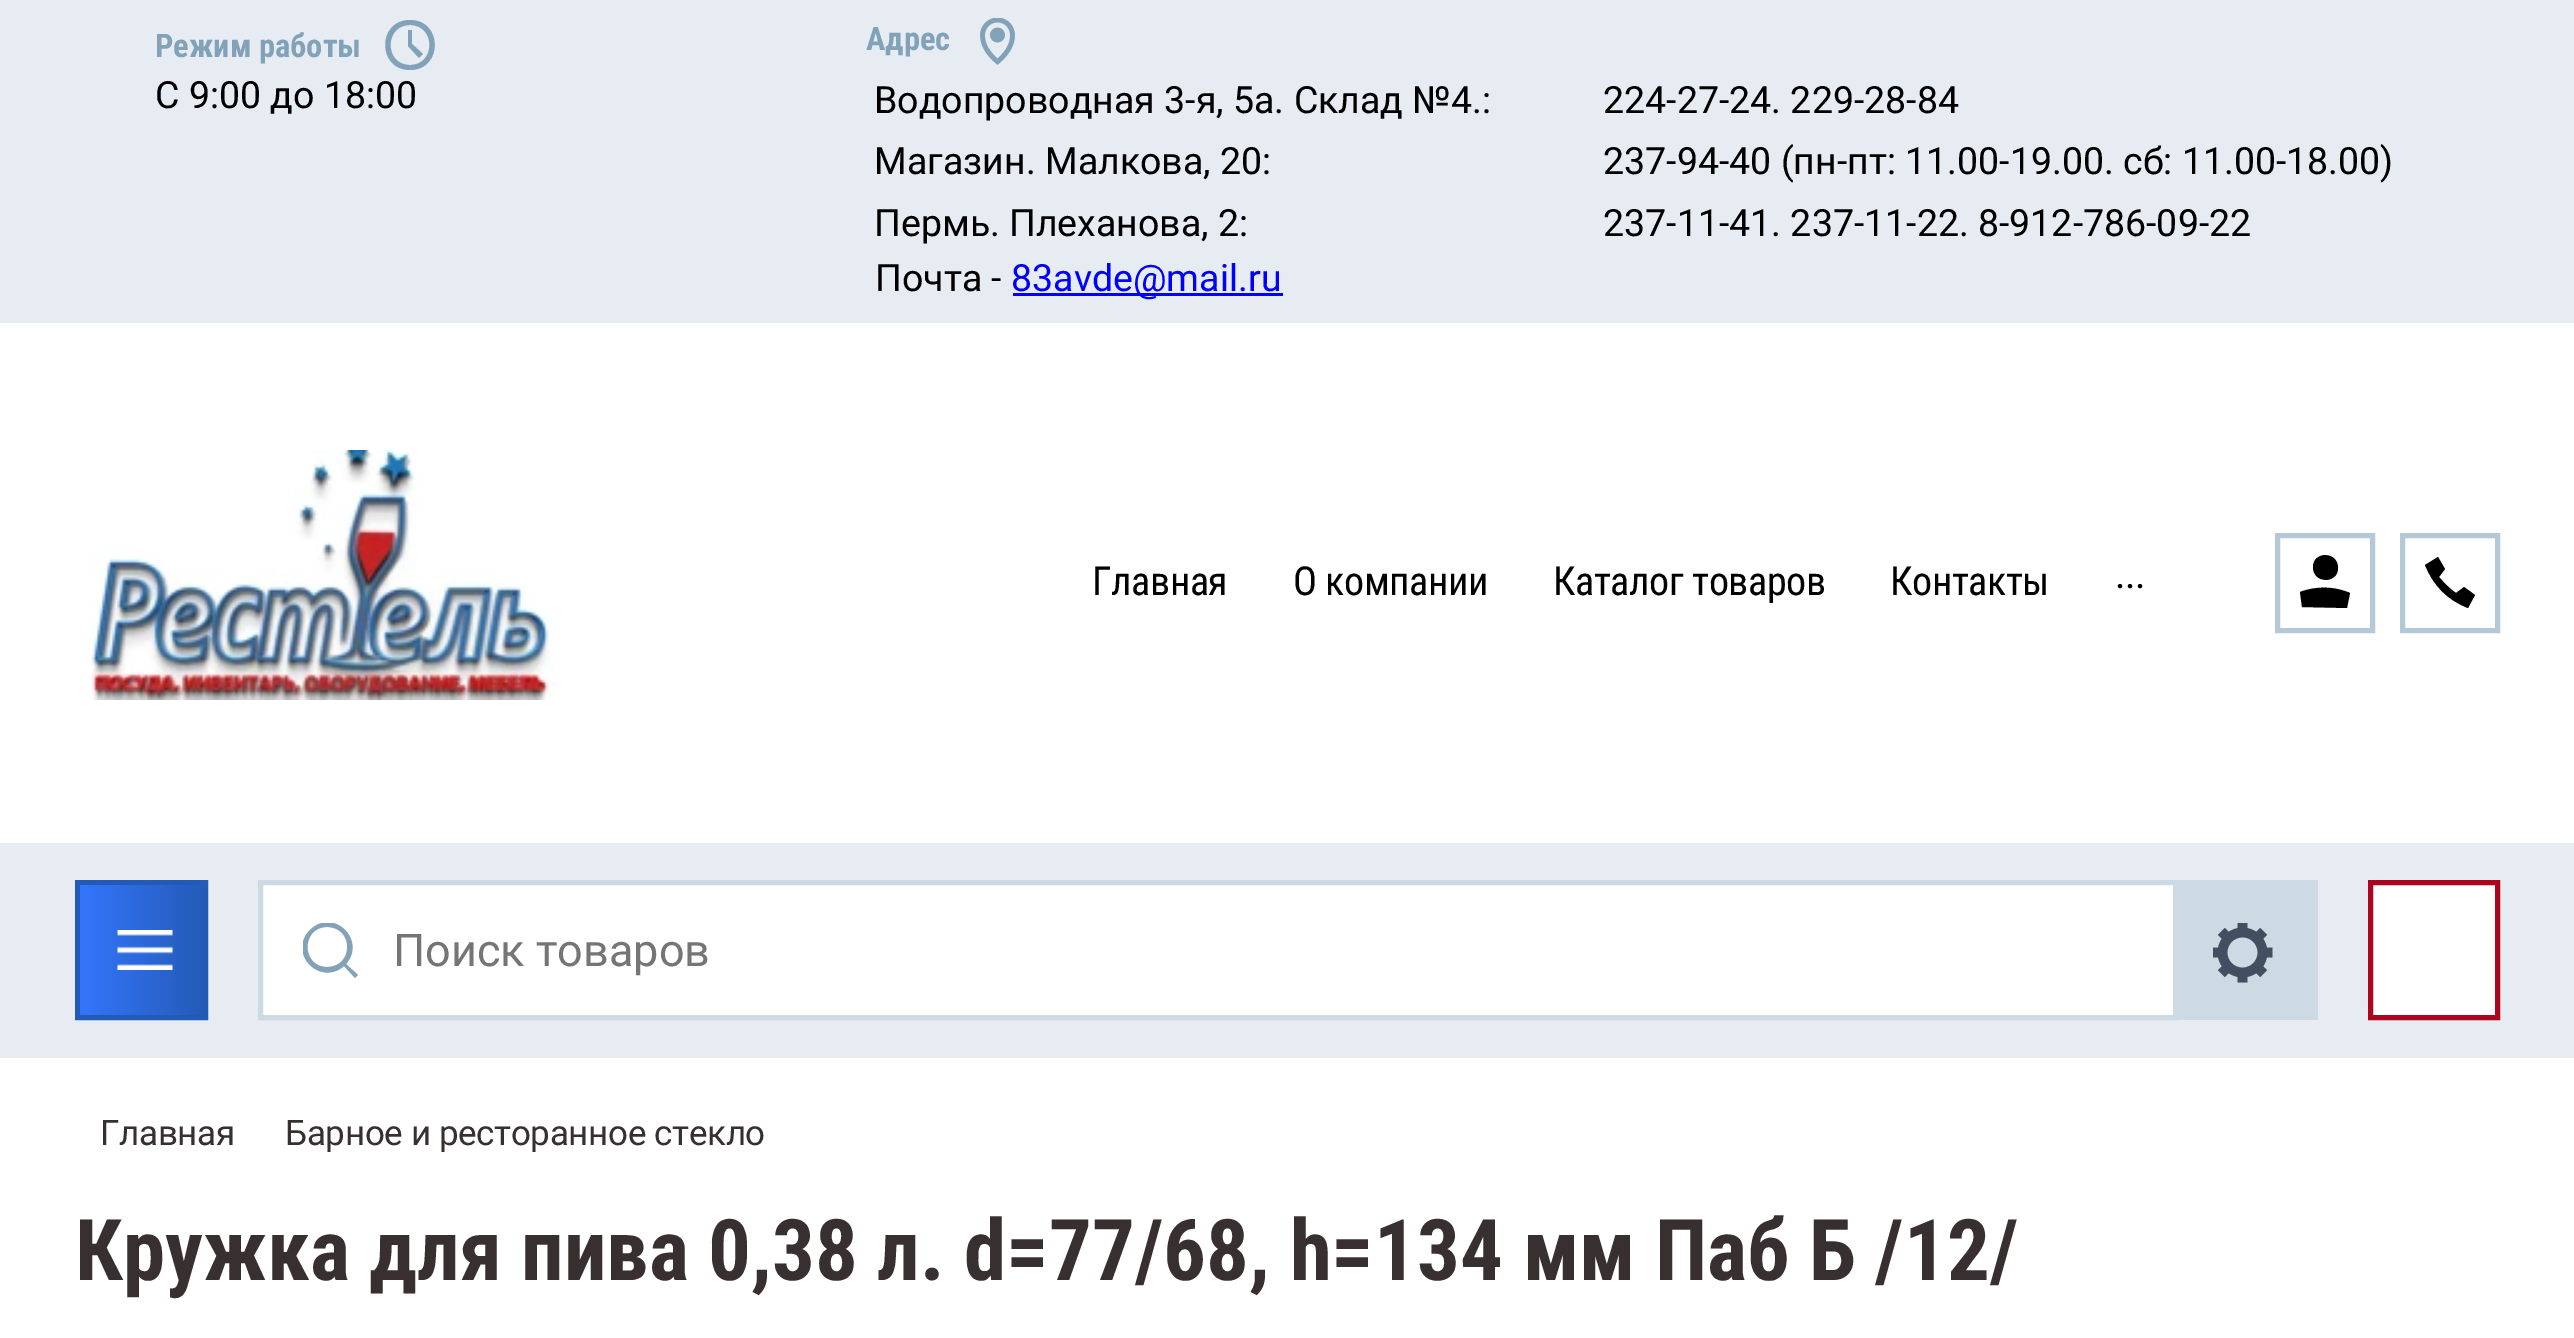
%!PS
<< /PageSize [2574 1338] >> setpagedevice
/mt/moveto load def
/li/lineto load def
/ct/curveto load def
/cp/closepath load def
/fl/fill load def
/st/stroke load def
/gs/gsave load def
/gr/grestore load def
/lw/setlinewidth load def
/co { dup -16 bitshift 255 div exch dup -8 bitshift 255 and 255 div exch 255 and 255 div setrgbcolor } def
/fn { [ exch dup neg 0 0 3 -1 roll 0 0 ] selectfont } def
/tx { co fn moveto show } def
/bx { co rectfill } def
/im { 5 dict begin { /h /w /y /x /name } { exch def } forall
  gsave x y translate w h scale
  w h 8 [w 0 0 h 0 0] name (r) file false 3 colorimage grestore end } def
0 1338 translate 1 -1 scale
4 setmiterlimit
0 0 2574 1338 16#FFFFFF bx
0 0 2574 1058 16#E6ECF1 bx
16#81A2B8 co
410 65 mt 436 65 436 25 410 25 ct 384 25 384 65 410 65 ct cp 410 70 mt 377 70 377 20 410 20 ct 443 20 443 70 410 70 ct cp 412 44 mt 412 30 li 408 30 li 408 46 li 419 58 li 423 54 li cp eofill
(media/1.raw) 980 18 35 47 im
1013 293 270 3 16#0000FF bx
0 323 2574 520 16#FFFFFF bx
(media/2.raw) 91 450 464 250 im
16#B4C8D5 co
5 lw
2277.5 535.5 95 95 rectstroke
16#000000 co
2338 568 mt 2338 551 2313 551 2313 567 ct 2313 584 2338 584 2338 568 ct cp 2300 592 mt 2302 607 li 2347 608 li 2350 593 li 2334 586 2316 586 2300 592 ct cp eofill
2425 565 mt 2438 557 li 2445 569 li 2439 577 li 2444 583 2450 589 2456 593 ct 2464 587 li 2475 595 li 2468 608 li 2447 600 2433 585 2425 565 ct cp eofill
16#B4C8D5 co
2402.5 535.5 95 95 rectstroke
16#235AB6 co
77.5 882.5 128 135 rectstroke
(media/3.raw) 80 885 123 130 im
16#FFFFFF co
260.5 882.5 mt 2175.5 882.5 li 2175.5 1017.5 li 260.5 1017.5 li cp gs fl gr
16#CDDAE3 co
st
gs
303 923 55 55 rectclip
16#81A2B8 co
346 964 mt 358 975 li 355 978 li 344 966 li 320 987 287 953 310 930 ct 333 907 367 940 346 964 ct cp 327 967 mt 354 967 354 927 327 927 ct 301 927 301 967 327 967 ct cp eofill
gr
2178 880 140 140 16#CDDAE3 bx
(media/4.raw) 2213 923 60 60 im
16#FFFFFF co
2370.5 882.5 mt 2497.5 882.5 li 2497.5 1017.5 li 2370.5 1017.5 li cp gs fl gr
16#AD051D co
st
(Режим работы) 155 57 /RobotoCondensed-Bold 32.5 16#81A2B8 tx
(C 9:00 до 18:00) 155 108 /Roboto-Regular 37.5 16#000000 tx
(Адрес) 866 50 /RobotoCondensed-Bold 32.5 16#81A2B8 tx
(Водопроводная 3-я, 5а. Склад №4.:) 874 113 /Roboto-Regular 37.5 16#000000 tx
(224-27-24. 229-28-84) 1603 113 /Roboto-Regular 37.5 16#000000 tx
(Магазин. Малкова, 20:) 874 174 /Roboto-Regular 37.5 16#000000 tx
(237-94-40 \(пн-пт: 11.00-19.00. сб: 11.00-18.00\)) 1603 174 /Roboto-Regular 37.5 16#000000 tx
(Пермь. Плеханова, 2:) 874 236 /Roboto-Regular 37.5 16#000000 tx
(237-11-41. 237-11-22. 8-912-786-09-22) 1603 236 /Roboto-Regular 37.5 16#000000 tx
(Почта -) 875 291 /Roboto-Regular 37.5 16#000000 tx
(83avde@mail.ru) 1011 291 /Roboto-Regular 37.5 16#0000FF tx
/RobotoCondensed-Regular 40 fn
16#000000 co
1092 595 mt -.4 0 (Главная) ashow
1293 595 mt -.4 0 (О компании) ashow
1553 595 mt -.4 0 (Каталог товаров) ashow
1890 595 mt -.4 0 (Контакты) ashow
2115 588 mt -.4 0 (...) ashow
(Поиск товаров) 393 966 /Roboto-Regular 45 16#757575 tx
/Roboto-Regular 35 fn
16#383030 co
100 1145 mt -.35 0 (Главная) ashow
285 1145 mt -.35 0 (Барное и ресторанное стекло) ashow
(Кружка для пива 0,38 л. d=77/68, h=134 мм Паб Б /12/) 75 1280 /RobotoCondensed-Bold 85 16#383030 tx
showpage
